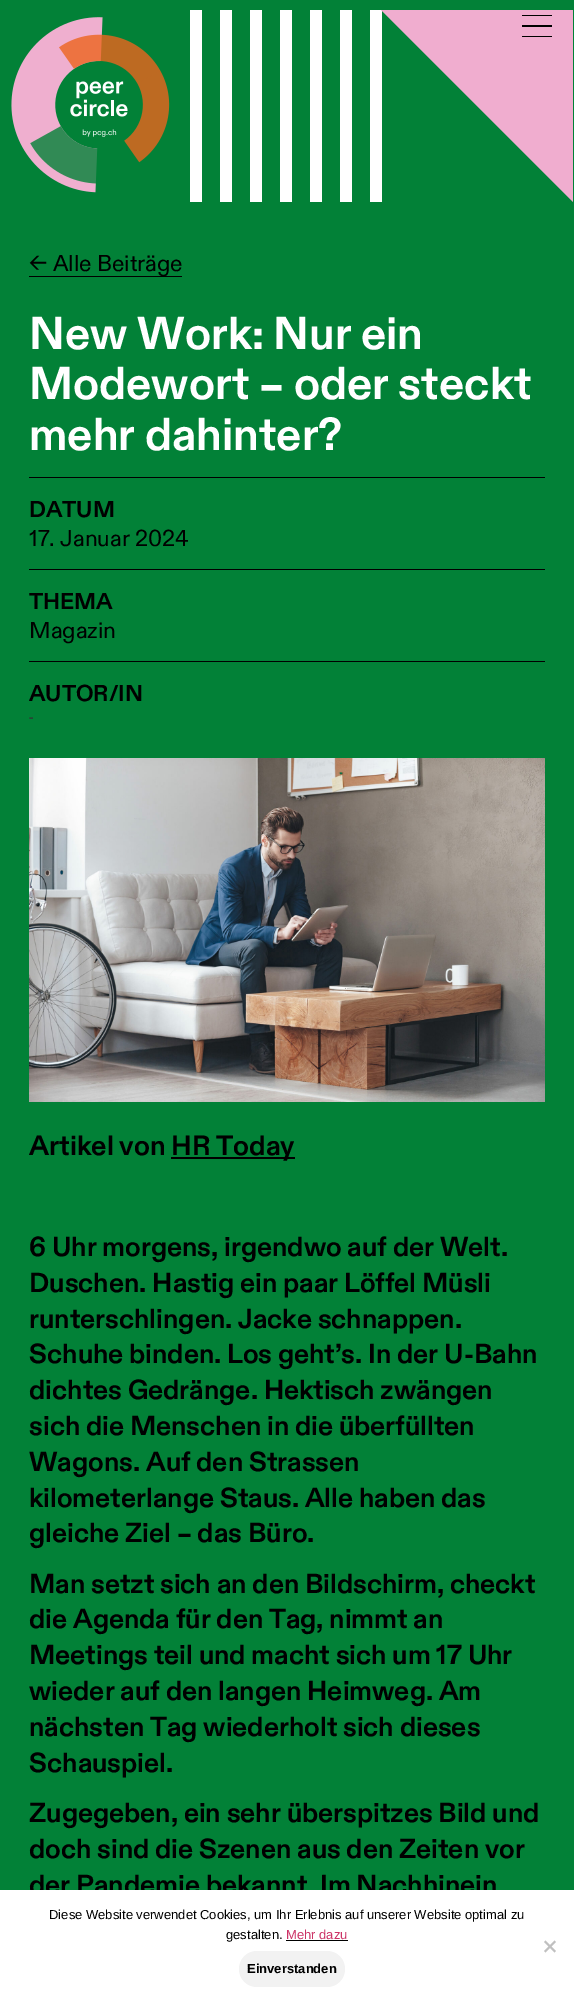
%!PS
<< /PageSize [574 2002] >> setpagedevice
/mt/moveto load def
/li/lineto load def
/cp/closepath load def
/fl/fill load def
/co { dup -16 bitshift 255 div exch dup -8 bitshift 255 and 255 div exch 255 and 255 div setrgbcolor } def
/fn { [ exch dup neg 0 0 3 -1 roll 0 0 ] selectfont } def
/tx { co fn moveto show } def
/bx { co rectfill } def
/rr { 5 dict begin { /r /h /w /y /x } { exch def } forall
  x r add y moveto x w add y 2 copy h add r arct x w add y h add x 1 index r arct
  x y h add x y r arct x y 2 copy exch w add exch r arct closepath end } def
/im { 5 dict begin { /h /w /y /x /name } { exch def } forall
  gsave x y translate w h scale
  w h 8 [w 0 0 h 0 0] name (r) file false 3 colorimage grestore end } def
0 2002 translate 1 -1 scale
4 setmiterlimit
0 0 574 2002 16#028137 bx
370 10 12 192 16#FFFFFF bx
16#F0ADCF co
381 10 mt 573 202 li 573 10 li cp fl
522 15 30 1 16#000000 bx
522 25 30 2 16#000000 bx
522 36 30 1 16#000000 bx
(media/1.raw) 11 17 159 176 im
340 10 12 192 16#FFFFFF bx
310 10 12 192 16#FFFFFF bx
280 10 12 192 16#FFFFFF bx
250 10 12 192 16#FFFFFF bx
220 10 12 192 16#FFFFFF bx
190 10 12 192 16#FFFFFF bx
29 276 153 1 16#000000 bx
29 477 516 1 16#000000 bx
29 569 516 1 16#000000 bx
29 661 516 1 16#000000 bx
(media/2.raw) 29 758 516 344 im
171 1157 124 2 16#000000 bx
(← Alle Beiträge) 29 271 /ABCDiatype-Regular 23 16#000000 tx
(New Work: Nur ein) 29 349 /ABCDiatype-Bold 46 16#FFFFFF tx
(Modewort – oder steckt) 29 399 /ABCDiatype-Bold 46 16#FFFFFF tx
(mehr dahinter?) 29 450 /ABCDiatype-Bold 46 16#FFFFFF tx
(DATUM) 29 517 /ABCDiatype-Bold 23 16#000000 tx
(17. Januar 2024) 29 546 /ABCDiatype-Regular 23 16#000000 tx
(THEMA) 29 609 /ABCDiatype-Bold 23 16#000000 tx
(Magazin) 29 638 /ABCDiatype-Regular 23 16#000000 tx
(AUTOR/IN) 29 701 /ABCDiatype-Bold 23 16#000000 tx
(-) 29 723 /Roboto-Regular 16 16#333333 tx
(Artikel von) 29 1155 /ABCDiatype-Bold 28 16#000000 tx
(HR Today) 171 1155 /ABCDiatype-Bold 28 16#000000 tx
(6 Uhr morgens, irgendwo auf der Welt.) 29 1256 /ABCDiatype-Bold 27.5 16#000000 tx
(Duschen. Hastig ein paar Löffel Müsli) 29 1292 /ABCDiatype-Bold 27.5 16#000000 tx
(runterschlingen. Jacke schnappen.) 29 1328 /ABCDiatype-Bold 27.5 16#000000 tx
(Schuhe binden. Los geht’s. In der U-Bahn) 29 1363 /ABCDiatype-Bold 27.5 16#000000 tx
(dichtes Gedränge. Hektisch zwängen) 29 1399 /ABCDiatype-Bold 27.5 16#000000 tx
(sich die Menschen in die überfüllten) 29 1435 /ABCDiatype-Bold 27.5 16#000000 tx
(Wagons. Auf den Strassen) 29 1471 /ABCDiatype-Bold 27.5 16#000000 tx
(kilometerlange Staus. Alle haben das) 29 1507 /ABCDiatype-Bold 27.5 16#000000 tx
(gleiche Ziel – das Büro.) 29 1542 /ABCDiatype-Bold 27.5 16#000000 tx
(Man setzt sich an den Bildschirm, checkt) 29 1593 /ABCDiatype-Bold 27.5 16#000000 tx
(die Agenda für den Tag, nimmt an) 29 1628 /ABCDiatype-Bold 27.5 16#000000 tx
(Meetings teil und macht sich um 17 Uhr) 29 1664 /ABCDiatype-Bold 27.5 16#000000 tx
(wieder auf den langen Heimweg. Am) 29 1700 /ABCDiatype-Bold 27.5 16#000000 tx
(nächsten Tag wiederholt sich dieses) 29 1736 /ABCDiatype-Bold 27.5 16#000000 tx
(Schauspiel.) 29 1772 /ABCDiatype-Bold 27.5 16#000000 tx
(Zugegeben, ein sehr überspitzes Bild und) 29 1822 /ABCDiatype-Bold 27.5 16#000000 tx
(doch sind die Szenen aus den Zeiten vor) 29 1858 /ABCDiatype-Bold 27.5 16#000000 tx
(der Pandemie bekannt. Im Nachhinein) 29 1894 /ABCDiatype-Bold 27.5 16#000000 tx
0 1890 574 112 16#FFFFFF bx
(Diese Website verwendet Cookies, um Ihr Erlebnis auf unserer Website optimal zu) 49 1919 /LiberationSans-Regular 13 16#000000 tx
(gestalten.) 226 1939 /LiberationSans-Regular 13 16#000000 tx
(Mehr dazu) 286 1939 /LiberationSans-Regular 13 16#CC3366 tx
286 1940 62 1 16#000000 bx
16#C0C0C0 co
554.5 1940.5 mt 556 1942 li 545.5 1952.5 li 544 1951 li cp fl
544 1942 mt 545.5 1940.5 li 556 1951 li 554.5 1952.5 li cp fl
16#F2F2F2 co
239 1951 106 36 18 rr fl
(Einverstanden) 247 1973 /LiberationSans-Bold 13 16#000000 tx
showpage
